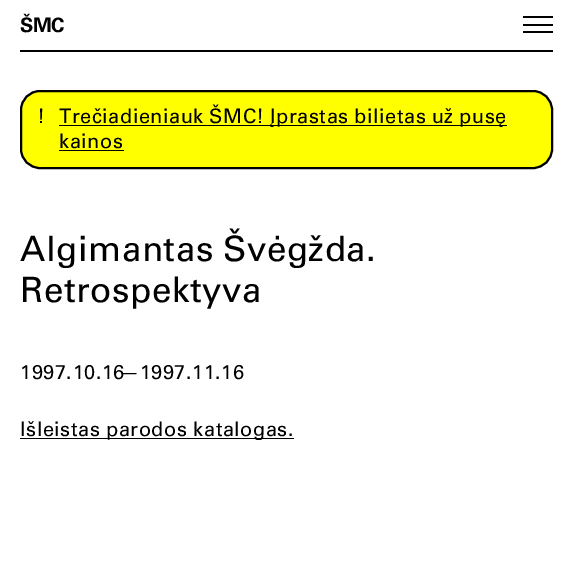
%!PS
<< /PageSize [573 577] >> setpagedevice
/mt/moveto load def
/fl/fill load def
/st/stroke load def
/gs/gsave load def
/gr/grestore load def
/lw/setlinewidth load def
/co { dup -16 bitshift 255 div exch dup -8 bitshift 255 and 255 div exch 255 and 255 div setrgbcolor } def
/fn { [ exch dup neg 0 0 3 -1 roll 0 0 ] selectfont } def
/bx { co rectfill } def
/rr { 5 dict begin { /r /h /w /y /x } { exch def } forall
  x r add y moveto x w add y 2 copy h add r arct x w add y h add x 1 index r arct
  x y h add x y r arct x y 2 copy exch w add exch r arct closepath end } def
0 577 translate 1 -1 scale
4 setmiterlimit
0 0 573 577 16#FFFFFF bx
20 50 533 2 16#000000 bx
523 16 30 2 16#000000 bx
523 24 30 2 16#000000 bx
523 31 30 2 16#000000 bx
16#FFFF00 co
21 91 531 77 19 rr gs fl gr
16#000000 co
2 lw
st
59 125 448 1 16#000000 bx
59 150 65 1 16#000000 bx
20 438 274 1 16#000000 bx
/Univers-Bold 20 fn
20 32 mt -.5 0 (ŠMC) ashow
/Univers-Regular 20 fn
37 123 mt .5 0 (!) ashow
59 123 mt -.5 0 32 .5 0 (Trečiadieniauk ŠMC! Įprastas bilietas už pusę) awidthshow
59 148 mt .5 0 (kainos) ashow
/Univers-Regular 35 fn
20 261 mt -1 0 32 .5 0 (Algimantas Švėgžda.) awidthshow
20 302 mt .5 0 (Retrospektyva) ashow
/Univers-Regular 20 fn
20 379 mt .5 0 (1997.10.16) ashow
119 379 mt .5 0 (—1997.11.16) ashow
20 436 mt .5 0 (Išleistas parodos katalogas.) ashow
showpage
